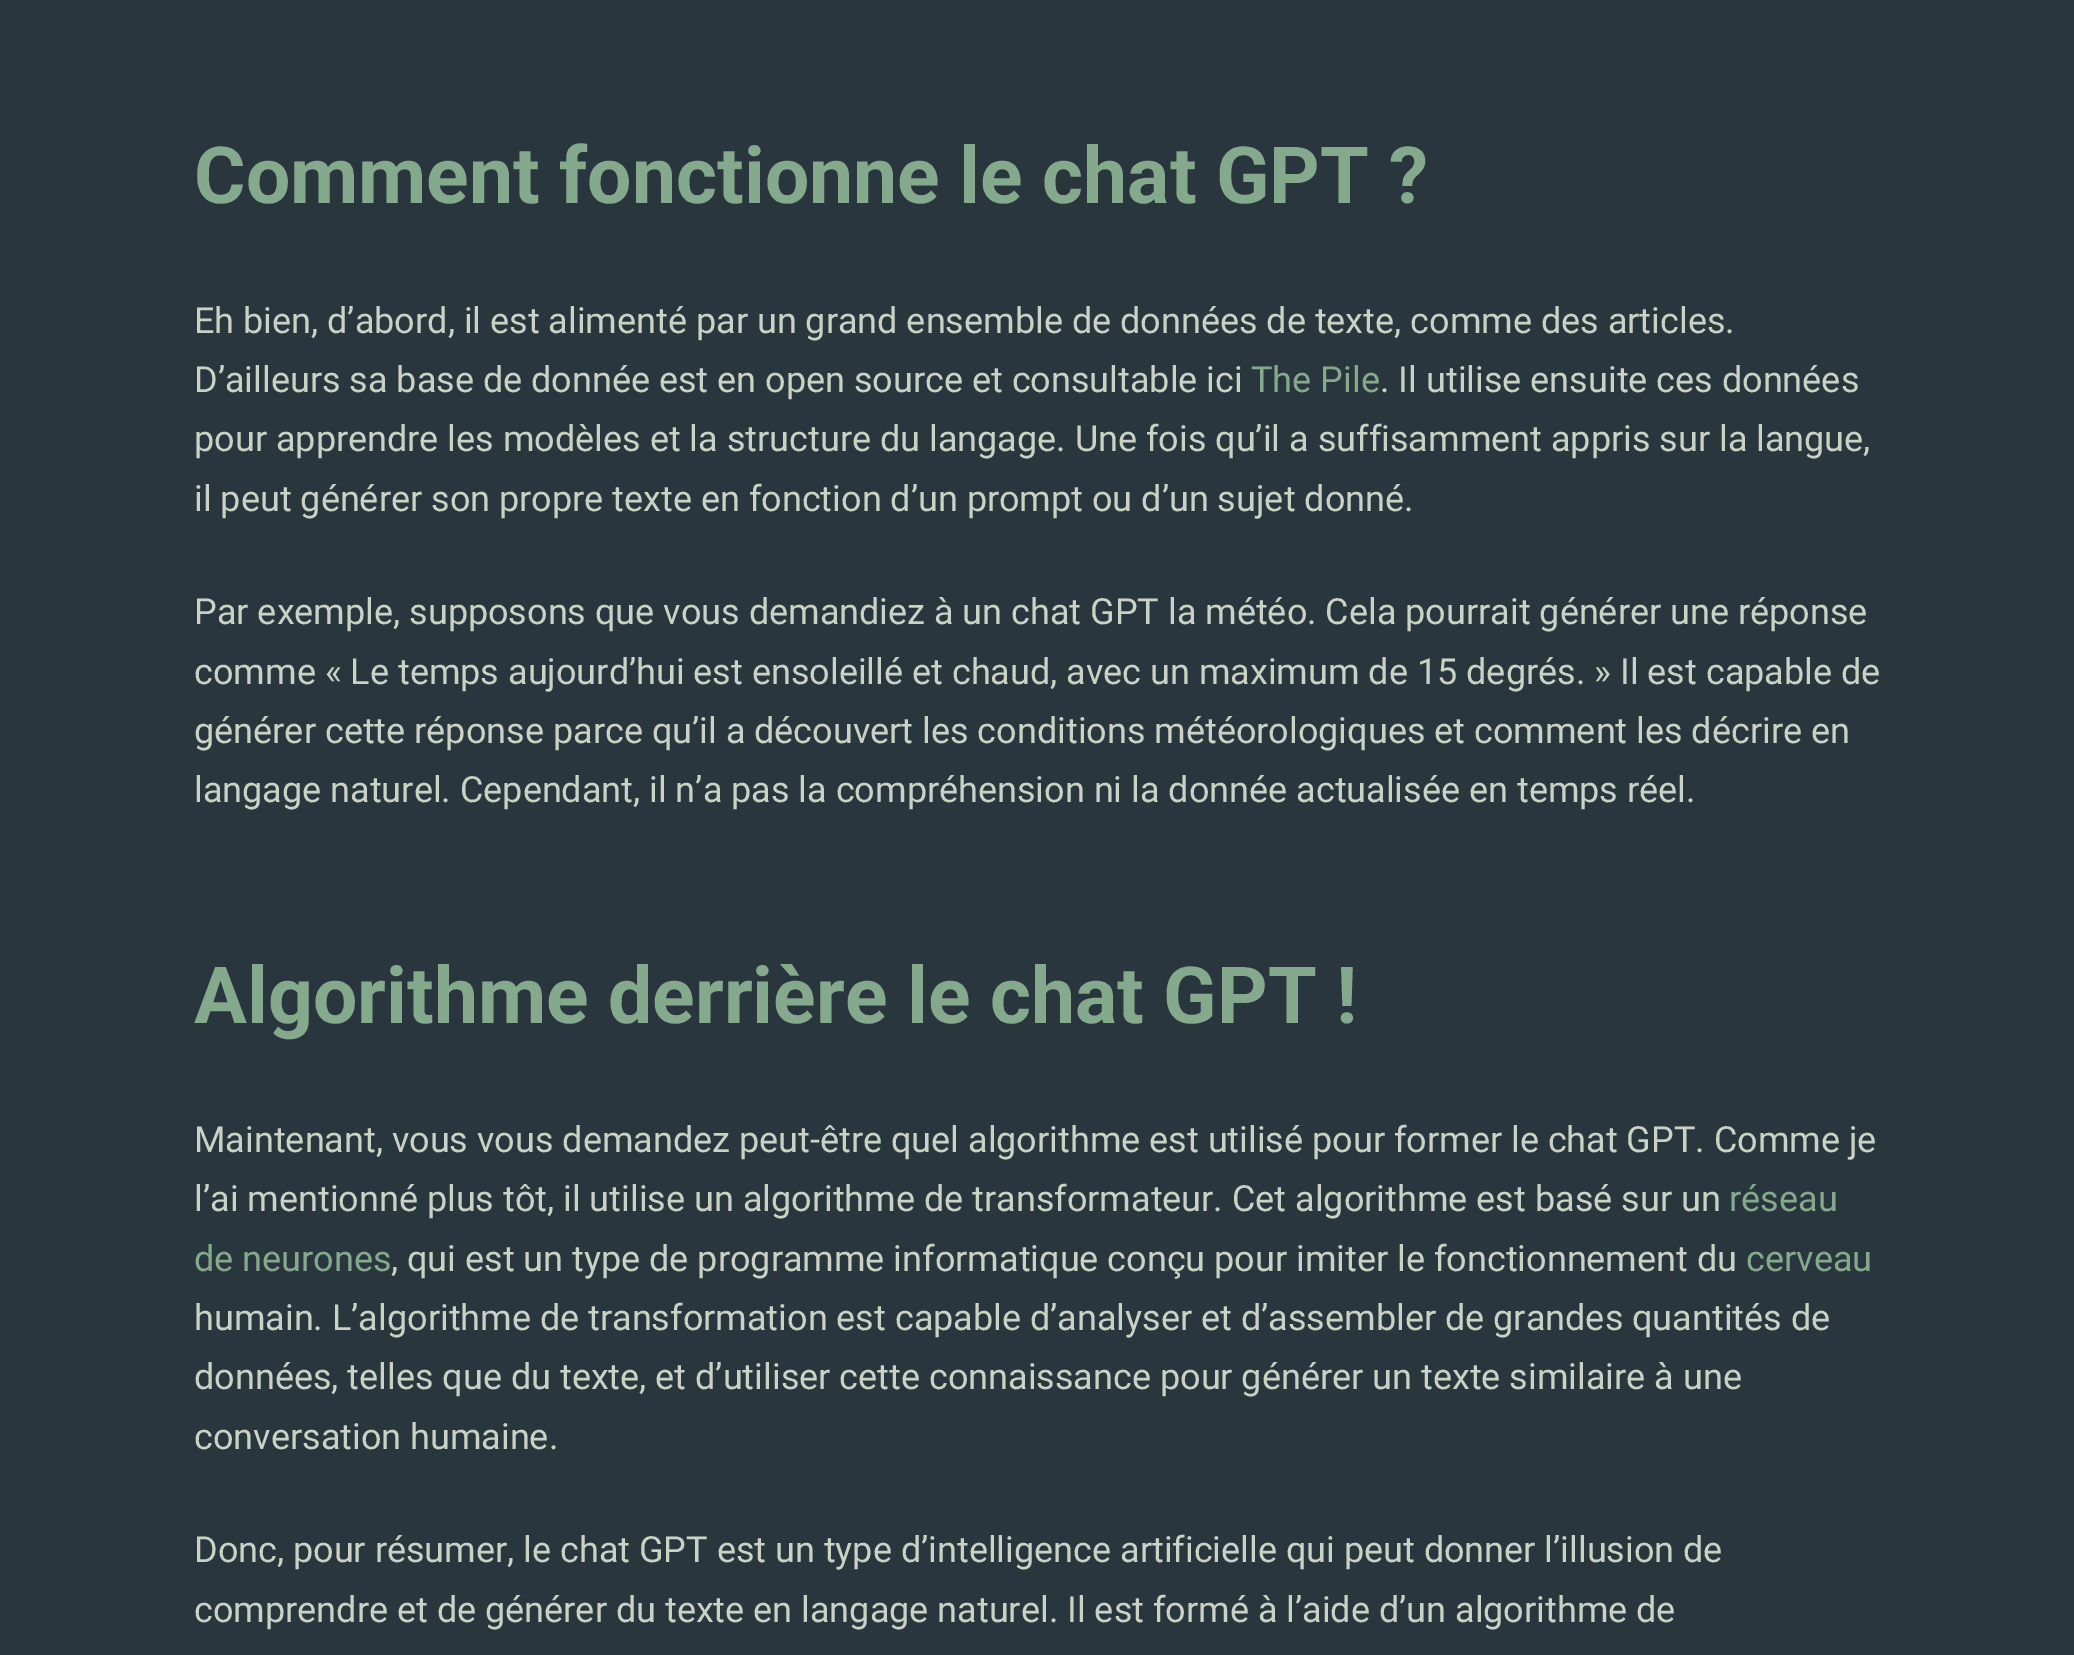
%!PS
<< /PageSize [2074 1655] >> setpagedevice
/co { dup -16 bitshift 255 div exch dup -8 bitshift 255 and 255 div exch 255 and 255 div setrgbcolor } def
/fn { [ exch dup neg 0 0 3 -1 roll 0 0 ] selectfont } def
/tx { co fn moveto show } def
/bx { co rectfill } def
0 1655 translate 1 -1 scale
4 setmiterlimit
0 0 2074 1655 16#29363D bx
(Comment fonctionne le chat GPT ?) 194 203 /Roboto-Bold 78.75 16#84A98C tx
(Eh bien, d’abord, il est alimenté par un grand ensemble de données de texte, comme des articles.) 194 333 /Roboto-Regular 36 16#CAD2C5 tx
(D’ailleurs sa base de donnée est en open source et consultable ici) 194 392 /Roboto-Regular 36 16#CAD2C5 tx
(The Pile) 1251 392 /Roboto-Regular 36 16#84A98C tx
(. Il utilise ensuite ces données) 1380 392 /Roboto-Regular 36 16#CAD2C5 tx
(pour apprendre les modèles et la structure du langage. Une fois qu’il a suffisamment appris sur la langue,) 194 451 /Roboto-Regular 36 16#CAD2C5 tx
(il peut générer son propre texte en fonction d’un prompt ou d’un sujet donné.) 194 511 /Roboto-Regular 36 16#CAD2C5 tx
(Par exemple, supposons que vous demandiez à un chat GPT la météo. Cela pourrait générer une réponse) 194 624 /Roboto-Regular 36 16#CAD2C5 tx
(comme « Le temps aujourd’hui est ensoleillé et chaud, avec un maximum de 15 degrés. » Il est capable de) 194 684 /Roboto-Regular 36 16#CAD2C5 tx
(générer cette réponse parce qu’il a découvert les conditions météorologiques et comment les décrire en) 194 743 /Roboto-Regular 36 16#CAD2C5 tx
(langage naturel. Cependant, il n’a pas la compréhension ni la donnée actualisée en temps réel.) 194 802 /Roboto-Regular 36 16#CAD2C5 tx
(Algorithme derrière le chat GPT !) 194 1023 /Roboto-Bold 78.75 16#84A98C tx
(Maintenant, vous vous demandez peut-être quel algorithme est utilisé pour former le chat GPT. Comme je) 194 1152 /Roboto-Regular 36 16#CAD2C5 tx
(l’ai mentionné plus tôt, il utilise un algorithme de transformateur. Cet algorithme est basé sur un) 194 1211 /Roboto-Regular 36 16#CAD2C5 tx
(réseau) 1729 1211 /Roboto-Regular 36 16#84A98C tx
(de neurones) 194 1271 /Roboto-Regular 36 16#84A98C tx
(, qui est un type de programme informatique conçu pour imiter le fonctionnement du) 391 1271 /Roboto-Regular 36 16#CAD2C5 tx
(cerveau) 1746 1271 /Roboto-Regular 36 16#84A98C tx
(humain. L’algorithme de transformation est capable d’analyser et d’assembler de grandes quantités de) 194 1330 /Roboto-Regular 36 16#CAD2C5 tx
(données, telles que du texte, et d’utiliser cette connaissance pour générer un texte similaire à une) 194 1389 /Roboto-Regular 36 16#CAD2C5 tx
(conversation humaine.) 194 1449 /Roboto-Regular 36 16#CAD2C5 tx
(Donc, pour résumer, le chat GPT est un type d’intelligence artificielle qui peut donner l’illusion de) 194 1562 /Roboto-Regular 36 16#CAD2C5 tx
(comprendre et de générer du texte en langage naturel. Il est formé à l’aide d’un algorithme de) 194 1622 /Roboto-Regular 36 16#CAD2C5 tx
showpage
